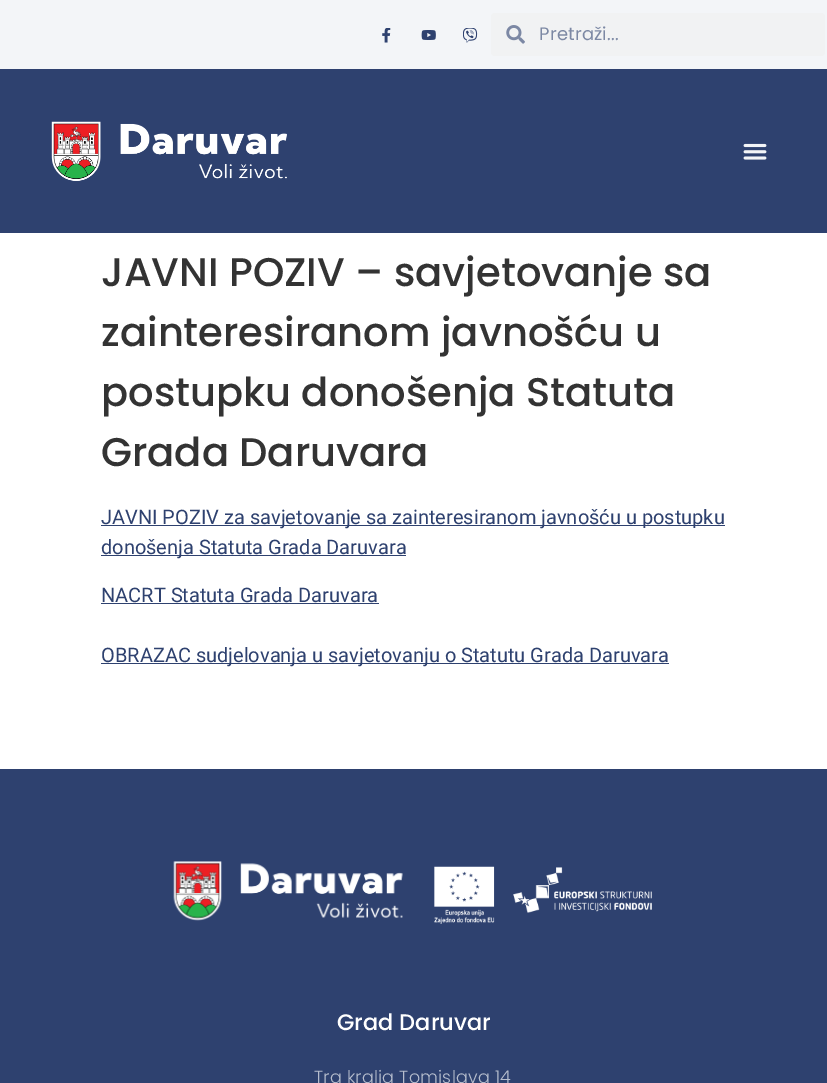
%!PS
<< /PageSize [827 1083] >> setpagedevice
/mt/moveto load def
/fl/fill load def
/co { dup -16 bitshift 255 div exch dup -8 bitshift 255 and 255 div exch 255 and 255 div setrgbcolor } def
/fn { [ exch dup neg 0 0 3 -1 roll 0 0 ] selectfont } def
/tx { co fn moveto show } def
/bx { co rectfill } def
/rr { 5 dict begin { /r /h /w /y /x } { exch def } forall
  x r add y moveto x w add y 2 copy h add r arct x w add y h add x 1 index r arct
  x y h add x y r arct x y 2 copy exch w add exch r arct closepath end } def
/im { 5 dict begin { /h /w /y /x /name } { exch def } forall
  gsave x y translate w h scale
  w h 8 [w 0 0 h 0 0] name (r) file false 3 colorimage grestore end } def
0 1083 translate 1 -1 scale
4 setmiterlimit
0 0 827 1083 16#FFFFFF bx
0 0 827 69 16#F3F5F8 bx
(media/1.raw) 382 28 9 15 im
(media/2.raw) 421 30 15 10 im
(media/3.raw) 463 28 15 15 im
16#F1F2F3 co
491 13 334 43 4 rr fl
(media/4.raw) 506 25 19 19 im
0 69 827 164 16#2E416F bx
(media/5.raw) 51 121 236 60 im
(media/6.raw) 743 143 24 17 im
101 525 624 1 16#2E416F bx
101 555 305 1 16#2E416F bx
101 603 278 1 16#2E416F bx
101 663 568 1 16#2E416F bx
0 769 827 314 16#2E416F bx
(media/7.raw) 173 861 230 60 im
(media/8.raw) 434 866 218 58 im
/Poppins-Regular 18 fn
16#7C88A4 co
539 40 mt .2 0 (Pretraži...) ashow
(JAVNI POZIV – savjetovanje sa) 101 286 /Poppins-Medium 40 16#333333 tx
(zainteresiranom javnošću u) 101 346 /Poppins-Medium 40 16#333333 tx
(postupku donošenja Statuta) 101 406 /Poppins-Medium 40 16#333333 tx
(Grada Daruvara) 101 466 /Poppins-Medium 40 16#333333 tx
(JAVNI POZIV za savjetovanje sa zainteresiranom javnošću u postupku) 101 524 /Roboto-Regular 20 16#2E416F tx
(donošenja Statuta Grada Daruvara) 101 554 /Roboto-Regular 20 16#2E416F tx
(NACRT Statuta Grada Daruvara) 101 602 /Roboto-Regular 20 16#2E416F tx
(OBRAZAC sudjelovanja u savjetovanju o Statutu Grada Daruvara) 101 662 /Roboto-Regular 20 16#2E416F tx
(Grad Daruvar) 337 1030 /Poppins-Medium 22.5 16#FFFFFF tx
/Poppins-Light 17.5 fn
16#B6BDCD co
314 1083 mt .2 0 (Trg kralja Tomislava 14) ashow
showpage
